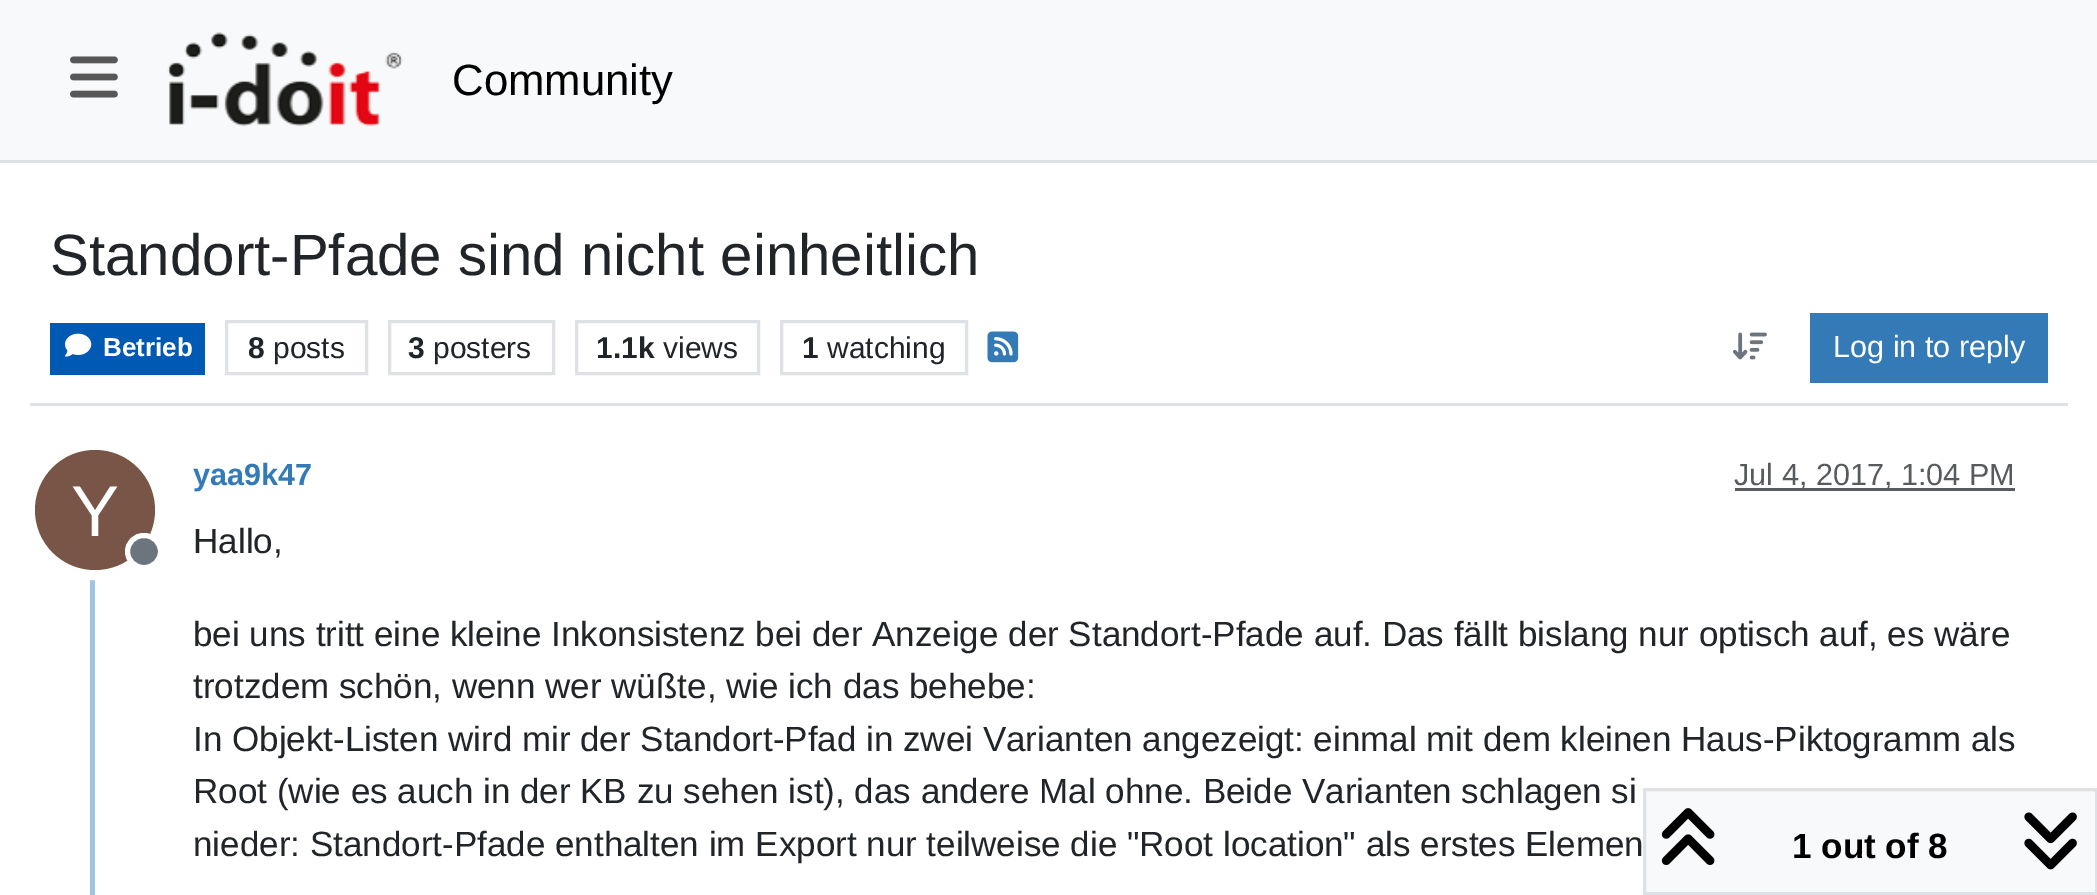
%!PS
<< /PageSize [2097 895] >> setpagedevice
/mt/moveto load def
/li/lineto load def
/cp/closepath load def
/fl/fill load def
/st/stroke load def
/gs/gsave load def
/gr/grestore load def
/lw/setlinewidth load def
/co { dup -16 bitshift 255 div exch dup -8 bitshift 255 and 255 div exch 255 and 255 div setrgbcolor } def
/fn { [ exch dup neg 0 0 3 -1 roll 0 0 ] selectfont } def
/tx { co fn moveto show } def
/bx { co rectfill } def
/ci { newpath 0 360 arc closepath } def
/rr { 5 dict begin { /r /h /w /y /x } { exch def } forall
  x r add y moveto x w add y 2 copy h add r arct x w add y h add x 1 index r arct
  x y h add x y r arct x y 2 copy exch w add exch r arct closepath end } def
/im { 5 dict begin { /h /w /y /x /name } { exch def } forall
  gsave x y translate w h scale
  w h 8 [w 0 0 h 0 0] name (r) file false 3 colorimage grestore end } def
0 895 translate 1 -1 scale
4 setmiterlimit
0 0 2097 895 16#FFFFFF bx
0 0 2097 160 16#F8F9FA bx
0 160 2097 3 16#DEE2E6 bx
(media/1.raw) 70 56 48 42 im
(media/2.raw) 167 32 236 95 im
30 403 2038 3 16#DEE2E6 bx
50 323 155 52 16#0059B2 bx
(media/3.raw) 65 333 27 24 im
16#DEE2E6 co
3 lw
226.5 321.5 140 52 rectstroke
389.5 321.5 164 52 rectstroke
576.5 321.5 182 52 rectstroke
781.5 321.5 185 52 rectstroke
(media/4.raw) 987 331 32 32 im
(media/5.raw) 1733 332 34 28 im
1810 313 238 70 16#337AB7 bx
90 445 5 450 16#A0C4E4 bx
1735 488 280 3 16#595C5F bx
16#FFFFFF co
10 lw
95 510 65 ci st
16#795548 co
95 510 60 ci fl
16#6C757D co
127.5 535.5 33 32 16 rr gs fl gr
16#FFFFFF co
5 lw
st
16#F8F9FA co
1644.5 789.5 mt 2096.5 789.5 li 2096.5 893.5 li 1644.5 893.5 li cp gs fl gr
16#DEE2E6 co
3 lw
st
(media/6.raw) 1661 808 54 57 im
(media/7.raw) 2024 812 53 58 im
(Community) 452 95 /LiberationSans-Regular 43.75 16#000000 tx
(Standort-Pfade sind nicht einheitlich) 50 275 /LiberationSans-Regular 58.25 16#212529 tx
(Betrieb) 103 356 /LiberationSans-Bold 26 16#FFFFFF tx
(8) 248 358 /LiberationSans-Bold 30 16#212529 tx
(posts) 273 358 /LiberationSans-Regular 30 16#212529 tx
(3) 408 358 /LiberationSans-Bold 30 16#212529 tx
(posters) 433 358 /LiberationSans-Regular 30 16#212529 tx
(1.1k) 596 358 /LiberationSans-Bold 30 16#212529 tx
(views) 663 358 /LiberationSans-Regular 30 16#212529 tx
(1) 802 358 /LiberationSans-Bold 30 16#212529 tx
(watching) 827 358 /LiberationSans-Regular 30 16#212529 tx
(Log in to reply) 1833 357 /LiberationSans-Regular 30.6 16#FFFFFF tx
(yaa9k47) 193 485 /LiberationSans-Bold 30.6 16#337AB7 tx
(Jul 4, 2017, 1:04 PM) 1734 485 /LiberationSans-Regular 30.6 16#585B5E tx
(Y) 71 536 /LiberationSans-Regular 72 16#FFFFFF tx
(Hallo,) 193 553 /LiberationSans-Regular 35 16#212529 tx
(bei uns tritt eine kleine Inkonsistenz bei der Anzeige der Standort-Pfade auf. Das fällt bislang nur optisch auf, es wäre) 193 646 /LiberationSans-Regular 35 16#212529 tx
(trotzdem schön, wenn wer wüßte, wie ich das behebe:) 193 698 /LiberationSans-Regular 35 16#212529 tx
(In Objekt-Listen wird mir der Standort-Pfad in zwei Varianten angezeigt: einmal mit dem kleinen Haus-Piktogramm als) 193 751 /LiberationSans-Regular 35 16#212529 tx
(Root \(wie es auch in der KB zu sehen ist\), das andere Mal ohne. Beide Varianten schlagen si) 193 803 /LiberationSans-Regular 35 16#212529 tx
(nieder: Standort-Pfade enthalten im Export nur teilweise die "Root location" als erstes Elemen) 193 856 /LiberationSans-Regular 35 16#212529 tx
(1 out of 8) 1792 858 /LiberationSans-Bold 35 16#000000 tx
showpage
